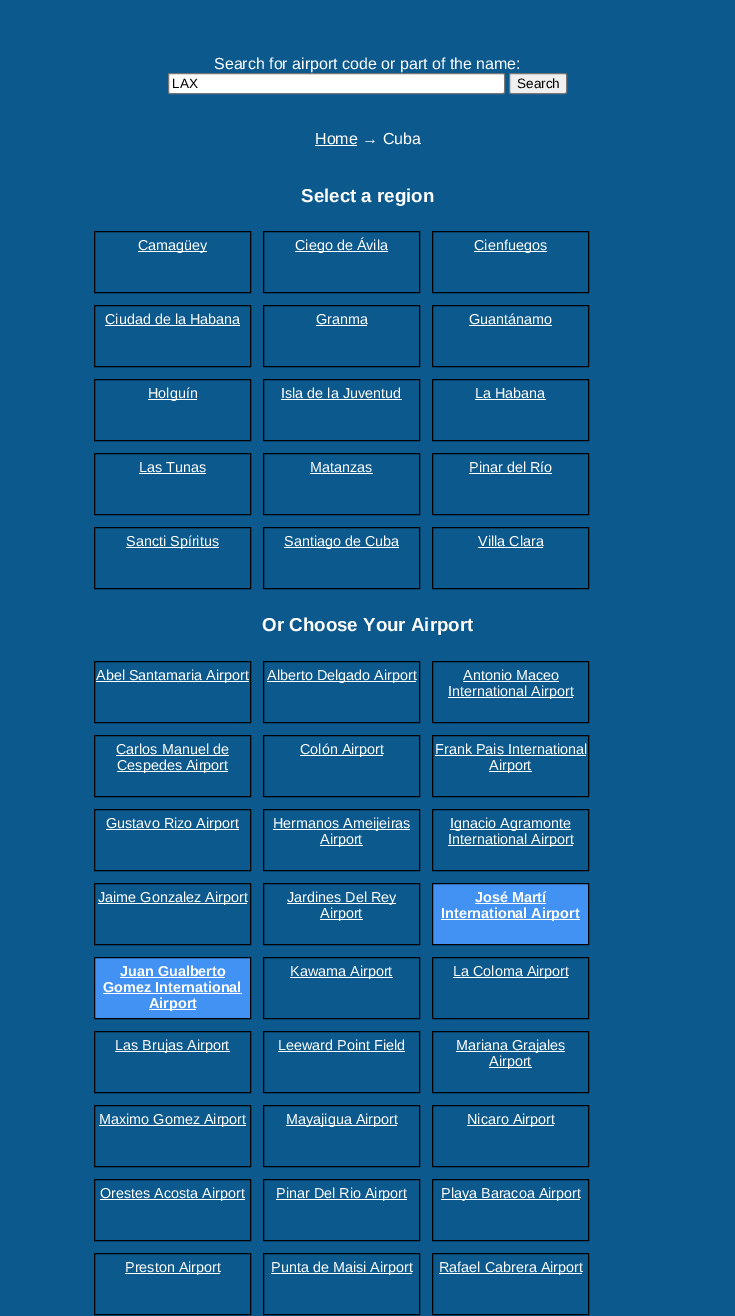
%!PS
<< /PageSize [735 1316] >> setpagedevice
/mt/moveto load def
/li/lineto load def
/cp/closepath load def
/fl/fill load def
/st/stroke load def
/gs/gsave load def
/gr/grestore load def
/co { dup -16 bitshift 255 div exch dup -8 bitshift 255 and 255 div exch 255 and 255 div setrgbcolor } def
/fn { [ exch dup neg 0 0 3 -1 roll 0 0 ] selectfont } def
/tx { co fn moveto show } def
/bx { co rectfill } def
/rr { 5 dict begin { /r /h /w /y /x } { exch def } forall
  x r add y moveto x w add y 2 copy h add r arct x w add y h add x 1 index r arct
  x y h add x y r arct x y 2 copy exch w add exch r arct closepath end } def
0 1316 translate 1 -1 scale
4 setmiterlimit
0 0 735 1316 16#0B598D bx
16#FFFFFF co
168.5 73.5 336 20 1.5 rr gs fl gr
16#767676 co
st
16#EFEFEF co
509.5 73.5 57 20 1.5 rr gs fl gr
16#767676 co
st
315 145 42 1 16#FFFFFF bx
16#000000 co
94.5 231.5 156 61 rectstroke
138 251 69 1 16#FFFFFF bx
16#000000 co
263.5 231.5 156 61 rectstroke
295 251 93 1 16#FFFFFF bx
16#000000 co
432.5 231.5 156 61 rectstroke
474 251 73 1 16#FFFFFF bx
16#000000 co
94.5 305.5 156 61 rectstroke
105 325 135 1 16#FFFFFF bx
16#000000 co
263.5 305.5 156 61 rectstroke
316 325 51 1 16#FFFFFF bx
16#000000 co
432.5 305.5 156 61 rectstroke
469 325 83 1 16#FFFFFF bx
16#000000 co
94.5 379.5 156 61 rectstroke
148 399 49 1 16#FFFFFF bx
16#000000 co
263.5 379.5 156 61 rectstroke
281 399 121 1 16#FFFFFF bx
16#000000 co
432.5 379.5 156 61 rectstroke
475 399 71 1 16#FFFFFF bx
16#000000 co
94.5 453.5 156 61 rectstroke
139 473 67 1 16#FFFFFF bx
16#000000 co
263.5 453.5 156 61 rectstroke
310 473 63 1 16#FFFFFF bx
16#000000 co
432.5 453.5 156 61 rectstroke
469 473 83 1 16#FFFFFF bx
16#000000 co
94.5 527.5 156 61 rectstroke
126 547 93 1 16#FFFFFF bx
16#000000 co
263.5 527.5 156 61 rectstroke
284 547 115 1 16#FFFFFF bx
16#000000 co
432.5 527.5 156 61 rectstroke
478 547 65 1 16#FFFFFF bx
16#000000 co
94.5 661.5 156 61 rectstroke
96 681 153 1 16#FFFFFF bx
16#000000 co
263.5 661.5 156 61 rectstroke
267 681 149 1 16#FFFFFF bx
16#000000 co
432.5 661.5 156 61 rectstroke
463 681 96 1 16#FFFFFF bx
448 697 125 1 16#FFFFFF bx
16#000000 co
94.5 735.5 156 61 rectstroke
116 755 113 1 16#FFFFFF bx
117 771 111 1 16#FFFFFF bx
16#000000 co
263.5 735.5 156 61 rectstroke
300 755 83 1 16#FFFFFF bx
16#000000 co
432.5 735.5 156 61 rectstroke
435 755 151 1 16#FFFFFF bx
489 771 43 1 16#FFFFFF bx
16#000000 co
94.5 809.5 156 61 rectstroke
106 829 133 1 16#FFFFFF bx
16#000000 co
263.5 809.5 156 61 rectstroke
273 829 137 1 16#FFFFFF bx
320 845 43 1 16#FFFFFF bx
16#000000 co
432.5 809.5 156 61 rectstroke
450 829 121 1 16#FFFFFF bx
448 845 125 1 16#FFFFFF bx
16#000000 co
94.5 883.5 156 61 rectstroke
98 903 149 1 16#FFFFFF bx
16#000000 co
263.5 883.5 156 61 rectstroke
287 903 109 1 16#FFFFFF bx
320 919 43 1 16#FFFFFF bx
16#4292F4 co
432.5 883.5 mt 588.5 883.5 li 588.5 944.5 li 432.5 944.5 li cp gs fl gr
16#000000 co
st
475 903 71 1 16#FFFFFF bx
441 919 139 1 16#FFFFFF bx
16#4292F4 co
94.5 957.5 mt 250.5 957.5 li 250.5 1018.5 li 94.5 1018.5 li cp gs fl gr
16#000000 co
st
120 977 105 1 16#FFFFFF bx
103 993 139 1 16#FFFFFF bx
149 1009 47 1 16#FFFFFF bx
16#000000 co
263.5 957.5 156 61 rectstroke
290 977 103 1 16#FFFFFF bx
16#000000 co
432.5 957.5 156 61 rectstroke
453 977 115 1 16#FFFFFF bx
16#000000 co
94.5 1031.5 156 61 rectstroke
115 1051 115 1 16#FFFFFF bx
16#000000 co
263.5 1031.5 156 61 rectstroke
278 1051 127 1 16#FFFFFF bx
16#000000 co
432.5 1031.5 156 61 rectstroke
456 1051 109 1 16#FFFFFF bx
489 1067 43 1 16#FFFFFF bx
16#000000 co
94.5 1105.5 156 61 rectstroke
99 1125 147 1 16#FFFFFF bx
16#000000 co
263.5 1105.5 156 61 rectstroke
286 1125 111 1 16#FFFFFF bx
16#000000 co
432.5 1105.5 156 61 rectstroke
467 1125 87 1 16#FFFFFF bx
16#000000 co
94.5 1179.5 156 61 rectstroke
100 1199 145 1 16#FFFFFF bx
16#000000 co
263.5 1179.5 156 61 rectstroke
276 1199 131 1 16#FFFFFF bx
16#000000 co
432.5 1179.5 156 61 rectstroke
441 1199 139 1 16#FFFFFF bx
16#000000 co
94.5 1253.5 156 61 rectstroke
125 1273 95 1 16#FFFFFF bx
16#000000 co
263.5 1253.5 156 61 rectstroke
271 1273 141 1 16#FFFFFF bx
16#000000 co
432.5 1253.5 156 61 rectstroke
439 1273 143 1 16#FFFFFF bx
(Search for airport code or part of the name:) 214 69 /LiberationSans-Regular 16 16#FFFFFF tx
(LAX) 172 88 /LiberationSans-Regular 13.5 16#000000 tx
(Search) 517 88 /LiberationSans-Regular 13.5 16#000000 tx
(Home → Cuba) 315 144 /LiberationSans-Regular 16 16#FFFFFF tx
(Select a region) 301 202 /LiberationSans-Bold 18.75 16#FFFFFF tx
(Camagüey) 138 250 /LiberationSans-Regular 14.4 16#FFFFFF tx
(Ciego de Ávila) 295 250 /LiberationSans-Regular 14.4 16#FFFFFF tx
(Cienfuegos) 474 250 /LiberationSans-Regular 14.4 16#FFFFFF tx
(Ciudad de la Habana) 105 324 /LiberationSans-Regular 14.4 16#FFFFFF tx
(Granma) 316 324 /LiberationSans-Regular 14.4 16#FFFFFF tx
(Guantánamo) 469 324 /LiberationSans-Regular 14.4 16#FFFFFF tx
(Holguín) 148 398 /LiberationSans-Regular 14.4 16#FFFFFF tx
(Isla de la Juventud) 281 398 /LiberationSans-Regular 14.4 16#FFFFFF tx
(La Habana) 475 398 /LiberationSans-Regular 14.4 16#FFFFFF tx
(Las Tunas) 139 472 /LiberationSans-Regular 14.4 16#FFFFFF tx
(Matanzas) 310 472 /LiberationSans-Regular 14.4 16#FFFFFF tx
(Pinar del Río) 469 472 /LiberationSans-Regular 14.4 16#FFFFFF tx
(Sancti Spíritus) 126 546 /LiberationSans-Regular 14.4 16#FFFFFF tx
(Santiago de Cuba) 284 546 /LiberationSans-Regular 14.4 16#FFFFFF tx
(Villa Clara) 478 546 /LiberationSans-Regular 14.4 16#FFFFFF tx
(Or Choose Your Airport) 262 631 /LiberationSans-Bold 18.75 16#FFFFFF tx
(Abel Santamaria Airport) 96 680 /LiberationSans-Regular 14.4 16#FFFFFF tx
(Alberto Delgado Airport) 267 680 /LiberationSans-Regular 14.4 16#FFFFFF tx
(Antonio Maceo) 463 680 /LiberationSans-Regular 14.4 16#FFFFFF tx
(International Airport) 448 696 /LiberationSans-Regular 14.4 16#FFFFFF tx
(Carlos Manuel de) 116 754 /LiberationSans-Regular 14.4 16#FFFFFF tx
(Cespedes Airport) 117 770 /LiberationSans-Regular 14.4 16#FFFFFF tx
(Colón Airport) 300 754 /LiberationSans-Regular 14.4 16#FFFFFF tx
(Frank Pais International) 435 754 /LiberationSans-Regular 14.4 16#FFFFFF tx
(Airport) 489 770 /LiberationSans-Regular 14.4 16#FFFFFF tx
(Gustavo Rizo Airport) 106 828 /LiberationSans-Regular 14.4 16#FFFFFF tx
(Hermanos Ameijeiras) 273 828 /LiberationSans-Regular 14.4 16#FFFFFF tx
(Airport) 320 844 /LiberationSans-Regular 14.4 16#FFFFFF tx
(Ignacio Agramonte) 450 828 /LiberationSans-Regular 14.4 16#FFFFFF tx
(International Airport) 448 844 /LiberationSans-Regular 14.4 16#FFFFFF tx
(Jaime Gonzalez Airport) 98 902 /LiberationSans-Regular 14.4 16#FFFFFF tx
(Jardines Del Rey) 287 902 /LiberationSans-Regular 14.4 16#FFFFFF tx
(Airport) 320 918 /LiberationSans-Regular 14.4 16#FFFFFF tx
(José Martí) 475 902 /LiberationSans-Bold 14.4 16#FFFFFF tx
(International Airport) 441 918 /LiberationSans-Bold 14.4 16#FFFFFF tx
(Juan Gualberto) 120 976 /LiberationSans-Bold 14.4 16#FFFFFF tx
(Gomez International) 103 992 /LiberationSans-Bold 14.4 16#FFFFFF tx
(Airport) 149 1008 /LiberationSans-Bold 14.4 16#FFFFFF tx
(Kawama Airport) 290 976 /LiberationSans-Regular 14.4 16#FFFFFF tx
(La Coloma Airport) 453 976 /LiberationSans-Regular 14.4 16#FFFFFF tx
(Las Brujas Airport) 115 1050 /LiberationSans-Regular 14.4 16#FFFFFF tx
(Leeward Point Field) 278 1050 /LiberationSans-Regular 14.4 16#FFFFFF tx
(Mariana Grajales) 456 1050 /LiberationSans-Regular 14.4 16#FFFFFF tx
(Airport) 489 1066 /LiberationSans-Regular 14.4 16#FFFFFF tx
(Maximo Gomez Airport) 99 1124 /LiberationSans-Regular 14.4 16#FFFFFF tx
(Mayajigua Airport) 286 1124 /LiberationSans-Regular 14.4 16#FFFFFF tx
(Nicaro Airport) 467 1124 /LiberationSans-Regular 14.4 16#FFFFFF tx
(Orestes Acosta Airport) 100 1198 /LiberationSans-Regular 14.4 16#FFFFFF tx
(Pinar Del Rio Airport) 276 1198 /LiberationSans-Regular 14.4 16#FFFFFF tx
(Playa Baracoa Airport) 441 1198 /LiberationSans-Regular 14.4 16#FFFFFF tx
(Preston Airport) 125 1272 /LiberationSans-Regular 14.4 16#FFFFFF tx
(Punta de Maisi Airport) 271 1272 /LiberationSans-Regular 14.4 16#FFFFFF tx
(Rafael Cabrera Airport) 439 1272 /LiberationSans-Regular 14.4 16#FFFFFF tx
showpage
